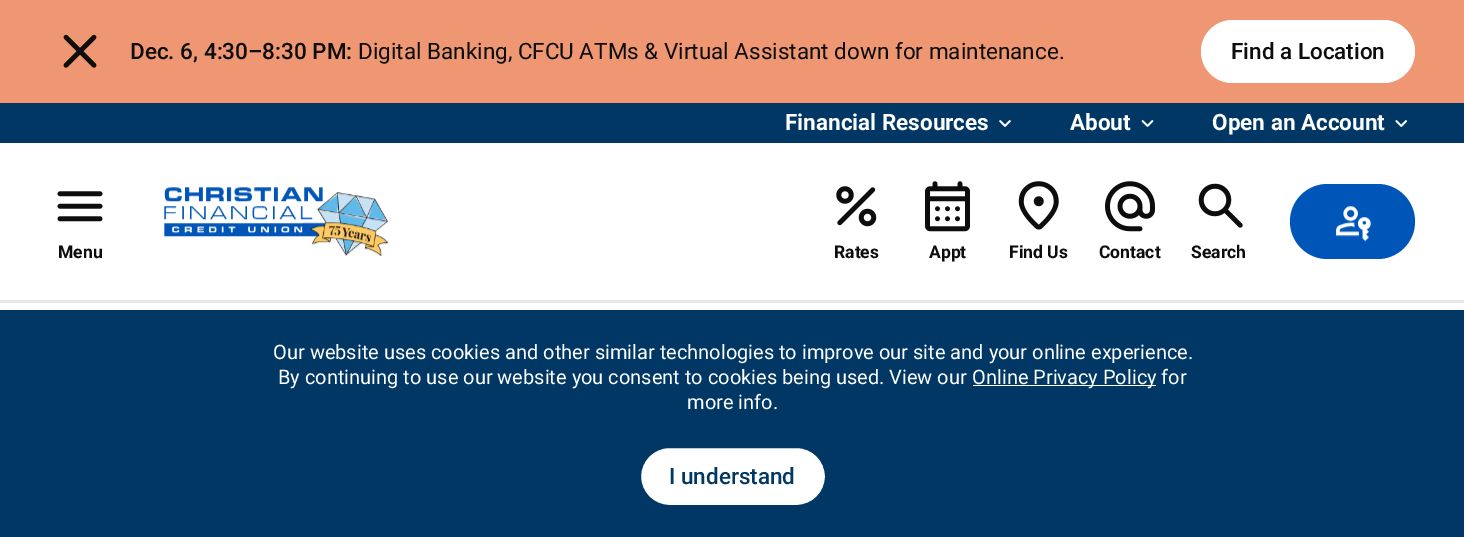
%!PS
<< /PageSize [1464 537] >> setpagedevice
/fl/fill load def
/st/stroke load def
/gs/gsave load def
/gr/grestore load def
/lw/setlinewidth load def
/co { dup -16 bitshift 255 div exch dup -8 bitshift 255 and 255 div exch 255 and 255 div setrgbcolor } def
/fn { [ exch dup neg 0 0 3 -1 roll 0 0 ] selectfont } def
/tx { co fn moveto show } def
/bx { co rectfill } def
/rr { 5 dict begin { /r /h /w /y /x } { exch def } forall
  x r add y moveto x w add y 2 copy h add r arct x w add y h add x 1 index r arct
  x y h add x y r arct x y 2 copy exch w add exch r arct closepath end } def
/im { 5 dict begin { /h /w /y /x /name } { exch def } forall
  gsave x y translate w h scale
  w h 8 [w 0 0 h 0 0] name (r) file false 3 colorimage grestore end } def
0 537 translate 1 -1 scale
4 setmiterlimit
0 0 1464 537 16#FFFFFF bx
0 0 1464 103 16#EE9772 bx
(media/1.raw) 63 34 34 34 im
16#FFFFFF co
1201 20 214 63 31.5 rr fl
0 103 1464 40 16#003764 bx
(media/2.raw) 999 120 12 7 im
(media/3.raw) 1141 120 13 7 im
(media/4.raw) 1395 120 12 7 im
0 300 1464 3 16#E7E7E7 bx
(media/5.raw) 57 191 46 31 im
(media/6.raw) 164 187 224 69 im
(media/7.raw) 836 186 41 41 im
(media/8.raw) 925 181 45 51 im
(media/9.raw) 1018 181 41 49 im
(media/10.raw) 1105 181 50 51 im
(media/11.raw) 1198 183 45 45 im
16#0055B8 co
1290 184 125 75 37.5 rr fl
(media/12.raw) 1336 206 35 36 im
0 310 1464 227 16#003764 bx
973 385 183 1 16#FFFFFF bx
639.5 446.5 187 60 30 rr gs fl gr
16#003764 co
3 lw
st
(Dec. 6, 4:30–8:30 PM:) 130 59 /Roboto-Medium 22.5 16#0D0D0D tx
(Digital Banking, CFCU ATMs & Virtual Assistant down for maintenance.) 358 59 /Roboto-Regular 22.5 16#0D0D0D tx
(Find a Location) 1231 59 /Roboto-Medium 22.5 16#0D0D0D tx
(Financial Resources) 785 130 /Roboto-Bold 22.5 16#FFFFFF tx
(About) 1070 130 /Roboto-Bold 22.5 16#FFFFFF tx
(Open an Account) 1212 130 /Roboto-Bold 22.5 16#FFFFFF tx
(Menu) 58 258 /Roboto-Bold 17.5 16#0D0D0D tx
(Rates) 834 258 /Roboto-Bold 17.5 16#0D0D0D tx
(Appt) 929 258 /Roboto-Bold 17.5 16#0D0D0D tx
(Find Us) 1009 258 /Roboto-Bold 17.5 16#0D0D0D tx
(Contact) 1099 258 /Roboto-Bold 17.5 16#0D0D0D tx
(Search) 1191 258 /Roboto-Bold 17.5 16#0D0D0D tx
(Our website uses cookies and other similar technologies to improve our site and your online experience.) 273 359 /Roboto-Regular 20 16#FFFFFF tx
(By continuing to use our website you consent to cookies being used. View our) 278 384 /Roboto-Regular 20 16#FFFFFF tx
(Online Privacy Policy for) 972 384 /Roboto-Regular 20 16#FFFFFF tx
(more info.) 687 409 /Roboto-Regular 20 16#FFFFFF tx
(I understand) 669 484 /Roboto-Medium 22.5 16#003764 tx
showpage
